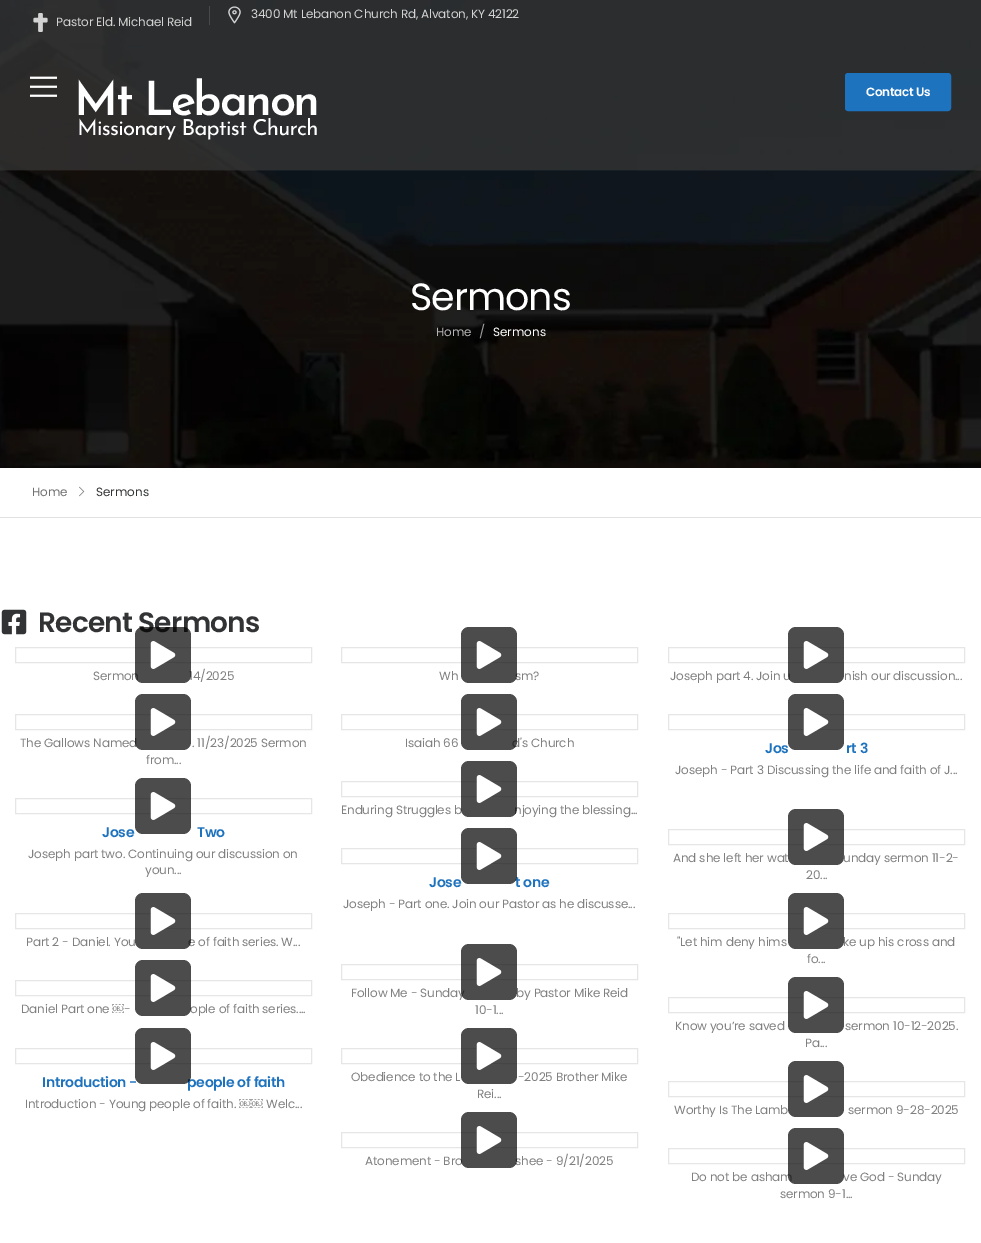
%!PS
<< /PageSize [981 1243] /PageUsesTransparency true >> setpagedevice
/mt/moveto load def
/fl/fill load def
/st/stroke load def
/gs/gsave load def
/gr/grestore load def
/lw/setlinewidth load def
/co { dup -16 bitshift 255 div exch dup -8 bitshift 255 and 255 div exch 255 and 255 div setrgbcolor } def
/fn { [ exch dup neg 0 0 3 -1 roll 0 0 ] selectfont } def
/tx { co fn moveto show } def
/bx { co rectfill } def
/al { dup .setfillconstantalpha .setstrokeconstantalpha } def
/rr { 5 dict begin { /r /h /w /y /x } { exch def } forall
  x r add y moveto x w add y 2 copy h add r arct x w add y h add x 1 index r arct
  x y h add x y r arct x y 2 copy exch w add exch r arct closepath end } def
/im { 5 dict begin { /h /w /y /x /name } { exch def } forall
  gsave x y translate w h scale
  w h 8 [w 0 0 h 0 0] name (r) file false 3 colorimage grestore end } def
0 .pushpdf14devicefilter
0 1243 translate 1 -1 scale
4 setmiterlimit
0 0 981 1243 16#FFFFFF bx
(media/5.raw) 0 0 981 468 im
0.76 al
0 0 981 45 16#353535 bx
1 al
209 6 1 19 16#48494B bx
(media/1.raw) 228 6 13 18 im
(media/2.raw) 33 13 15 19 im
0.05 al
0 170 981 1 16#EBEBEB bx
0.76 al
0 45 981 125 16#353535 bx
1 al
(media/3.raw) 30 76 27 21 im
(media/4.raw) 78 78 239 62 im
16#1E73BE co
846 74 104 36 2 rr gs fl gr
2 lw
st
0 517 981 1 16#E1E1E1 bx
(media/6.raw) 79 486 6 11 im
(media/7.raw) 1 609 26 26 im
16#E6E6E6 co
1 lw
15.5 647.5 296 15 rectstroke
341.5 647.5 296 15 rectstroke
668.5 647.5 296 15 rectstroke
15.5 714.5 296 15 rectstroke
341.5 714.5 296 15 rectstroke
668.5 714.5 296 15 rectstroke
341.5 781.5 296 15 rectstroke
15.5 798.5 296 15 rectstroke
0.7 al
16#000000 co
135 778 56 56 8 rr fl
1 al
(media/8.raw) 150 792 26 28 im
16#E6E6E6 co
668.5 829.5 296 15 rectstroke
341.5 848.5 296 15 rectstroke
15.5 913.5 296 15 rectstroke
668.5 913.5 296 15 rectstroke
15.5 980.5 296 15 rectstroke
341.5 964.5 296 15 rectstroke
668.5 997.5 296 15 rectstroke
0.7 al
16#000000 co
788 977 56 56 8 rr fl
1 al
(media/8.raw) 803 991 26 28 im
16#E6E6E6 co
15.5 1048.5 296 15 rectstroke
341.5 1048.5 296 15 rectstroke
0.7 al
16#000000 co
461 1028 56 56 8 rr fl
1 al
(media/8.raw) 476 1042 26 28 im
16#E6E6E6 co
668.5 1081.5 296 15 rectstroke
0.7 al
16#000000 co
788 1061 56 56 8 rr fl
1 al
(media/8.raw) 803 1075 26 28 im
16#E6E6E6 co
341.5 1132.5 296 15 rectstroke
668.5 1148.5 296 15 rectstroke
/Poppins-Regular 12 fn
16#D3D3D3 co
251 18 mt -.15 0 (3400 Mt Lebanon Church Rd, Alvaton, KY 42122) ashow
56 26 mt -.15 0 (Pastor Eld. Michael Reid) ashow
/Poppins-SemiBold 12 fn
16#FFFFFF co
866 96 mt -.25 0 (Contact Us) ashow
/Poppins-Regular 38 fn
410 310 mt -1 0 (Sermons) ashow
(Home) 436 336 /Poppins-Regular 12 16#B5B5B5 tx
(/) 479 336 /Poppins-Regular 13 16#9B9B9B tx
(Sermons) 493 336 /Poppins-Regular 12 16#FFFFFF tx
(Home) 32 496 /Poppins-Regular 12 16#707071 tx
(Sermons) 96 496 /Poppins-Regular 12 16#323334 tx
/Poppins-SemiBold 28 fn
38 632 mt -.75 0 (Recent Sermons) ashow
/Poppins-Regular 12 fn
16#808080 co
93 680 mt -.15 0 (Sermon) ashow
189 680 mt -.15 0 (14/2025) ashow
0.7 al
16#000000 co
135 627 56 56 8 rr fl
1 al
(media/8.raw) 150 641 26 28 im
16#808080 co
439 680 mt -.15 0 (Wh) ashow
515 680 mt -.15 0 (sm?) ashow
0.7 al
16#000000 co
461 627 56 56 8 rr fl
1 al
(media/8.raw) 476 641 26 28 im
16#808080 co
670 680 mt -.15 0 (Joseph part 4. Join u) ashow
0.7 al
16#000000 co
788 627 56 56 8 rr fl
1 al
(media/8.raw) 803 641 26 28 im
16#808080 co
844 680 mt -.15 0 (nish our discussion...) ashow
20 747 mt -.15 0 (The Gallows Named) ashow
0.7 al
16#000000 co
135 694 56 56 8 rr fl
1 al
(media/8.raw) 150 708 26 28 im
16#808080 co
192 747 mt -.15 0 (. 11/23/2025 Sermon) ashow
146 764 mt -.15 0 (from...) ashow
405 747 mt -.15 0 (Isaiah 66) ashow
512 747 mt -.15 0 (d's Church) ashow
0.7 al
16#000000 co
461 694 56 56 8 rr fl
1 al
(media/8.raw) 476 708 26 28 im
/Poppins-SemiBold 14 fn
16#1E73BE co
765 753 mt -.3 0 (Jos) ashow
0.7 al
16#000000 co
788 694 56 56 8 rr fl
1 al
(media/8.raw) 803 708 26 28 im
16#1E73BE co
846 753 mt -.3 0 (rt 3) ashow
/Poppins-Regular 12 fn
16#808080 co
675 774 mt -.15 0 (Joseph - Part 3 Discussing the life and faith of J...) ashow
341 814 mt -.15 0 (Enduring Struggles b) ashow
514 814 mt -.15 0 (njoying the blessing...) ashow
0.7 al
16#000000 co
461 761 56 56 8 rr fl
1 al
(media/8.raw) 476 775 26 28 im
/Poppins-SemiBold 14 fn
16#1E73BE co
102 837 mt -.3 0 (Jose) ashow
197 837 mt -.3 0 (Two) ashow
/Poppins-Regular 12 fn
16#808080 co
28 858 mt -.15 0 (Joseph part two. Continuing our discussion on) ashow
145 874 mt -.15 0 (youn...) ashow
673 862 mt -.15 0 (And she left her wat) ashow
0.7 al
16#000000 co
788 809 56 56 8 rr fl
1 al
(media/8.raw) 803 823 26 28 im
16#808080 co
843 862 mt -.15 0 (unday sermon 11-2-) ashow
806 879 mt -.15 0 (20...) ashow
/Poppins-SemiBold 14 fn
16#1E73BE co
429 887 mt -.3 0 (Jose) ashow
515 887 mt -.3 0 (t one) ashow
0.7 al
16#000000 co
461 828 56 56 8 rr fl
1 al
(media/8.raw) 476 842 26 28 im
/Poppins-Regular 12 fn
16#808080 co
343 908 mt -.15 0 (Joseph - Part one. Join our Pastor as he discusse...) ashow
26 946 mt -.15 0 (Part 2 - Daniel. You) ashow
188 946 mt -.15 0 (e of faith series. W...) ashow
0.7 al
16#000000 co
135 893 56 56 8 rr fl
1 al
(media/8.raw) 150 907 26 28 im
16#808080 co
677 946 mt -.15 0 ("Let him deny hims) ashow
843 946 mt -.15 0 (ke up his cross and) ashow
0.7 al
16#000000 co
788 893 56 56 8 rr fl
1 al
(media/8.raw) 803 907 26 28 im
16#808080 co
807 963 mt -.15 0 (fo...) ashow
21 1013 mt -.15 0 (Daniel Part one) ashow
/LiberationSans-Regular 12 fn
112 1013 mt -.15 0 (￼) ashow
/Poppins-Regular 12 fn
124 1013 mt -.15 0 (-) ashow
190 1013 mt -.15 0 (ople of faith series....) ashow
0.7 al
16#000000 co
135 960 56 56 8 rr fl
1 al
(media/8.raw) 150 974 26 28 im
16#808080 co
351 997 mt -.15 0 (Follow Me - Sunday) ashow
516 997 mt -.15 0 (by Pastor Mike Reid) ashow
0.7 al
16#000000 co
461 944 56 56 8 rr fl
1 al
(media/8.raw) 476 958 26 28 im
16#808080 co
475 1014 mt -.15 0 (10-1...) ashow
675 1030 mt -.15 0 (Know you’re saved) ashow
845 1030 mt -.15 0 (sermon 10-12-2025.) ashow
805 1047 mt -.15 0 (Pa...) ashow
/Poppins-SemiBold 14 fn
16#1E73BE co
42 1087 mt -.3 0 (Introduction -) ashow
187 1087 mt -.3 0 (people of faith) ashow
0.7 al
16#000000 co
135 1028 56 56 8 rr fl
1 al
(media/8.raw) 150 1042 26 28 im
/Poppins-Regular 12 fn
16#808080 co
25 1108 mt -.15 0 (Introduction - Young people of faith.) ashow
/LiberationSans-Regular 12 fn
239 1108 mt -.15 0 (￼￼) ashow
/Poppins-Regular 12 fn
266 1108 mt -.15 0 (Welc...) ashow
351 1081 mt -.15 0 (Obedience to the L) ashow
518 1081 mt -.15 0 (-2025 Brother Mike) ashow
477 1098 mt -.15 0 (Rei...) ashow
674 1114 mt -.15 0 (Worthy Is The Lamb) ashow
848 1114 mt -.15 0 (sermon 9-28-2025) ashow
365 1165 mt -.15 0 (Atonement - Bro) ashow
515 1165 mt -.15 0 (shee - 9/21/2025) ashow
0.7 al
16#000000 co
461 1112 56 56 8 rr fl
1 al
(media/8.raw) 476 1126 26 28 im
16#808080 co
691 1181 mt -.15 0 (Do not be asham) ashow
843 1181 mt -.15 0 (ve God - Sunday) ashow
0.7 al
16#000000 co
788 1128 56 56 8 rr fl
1 al
(media/8.raw) 803 1142 26 28 im
16#808080 co
780 1198 mt -.15 0 (sermon 9-1...) ashow
.poppdf14devicefilter showpage
